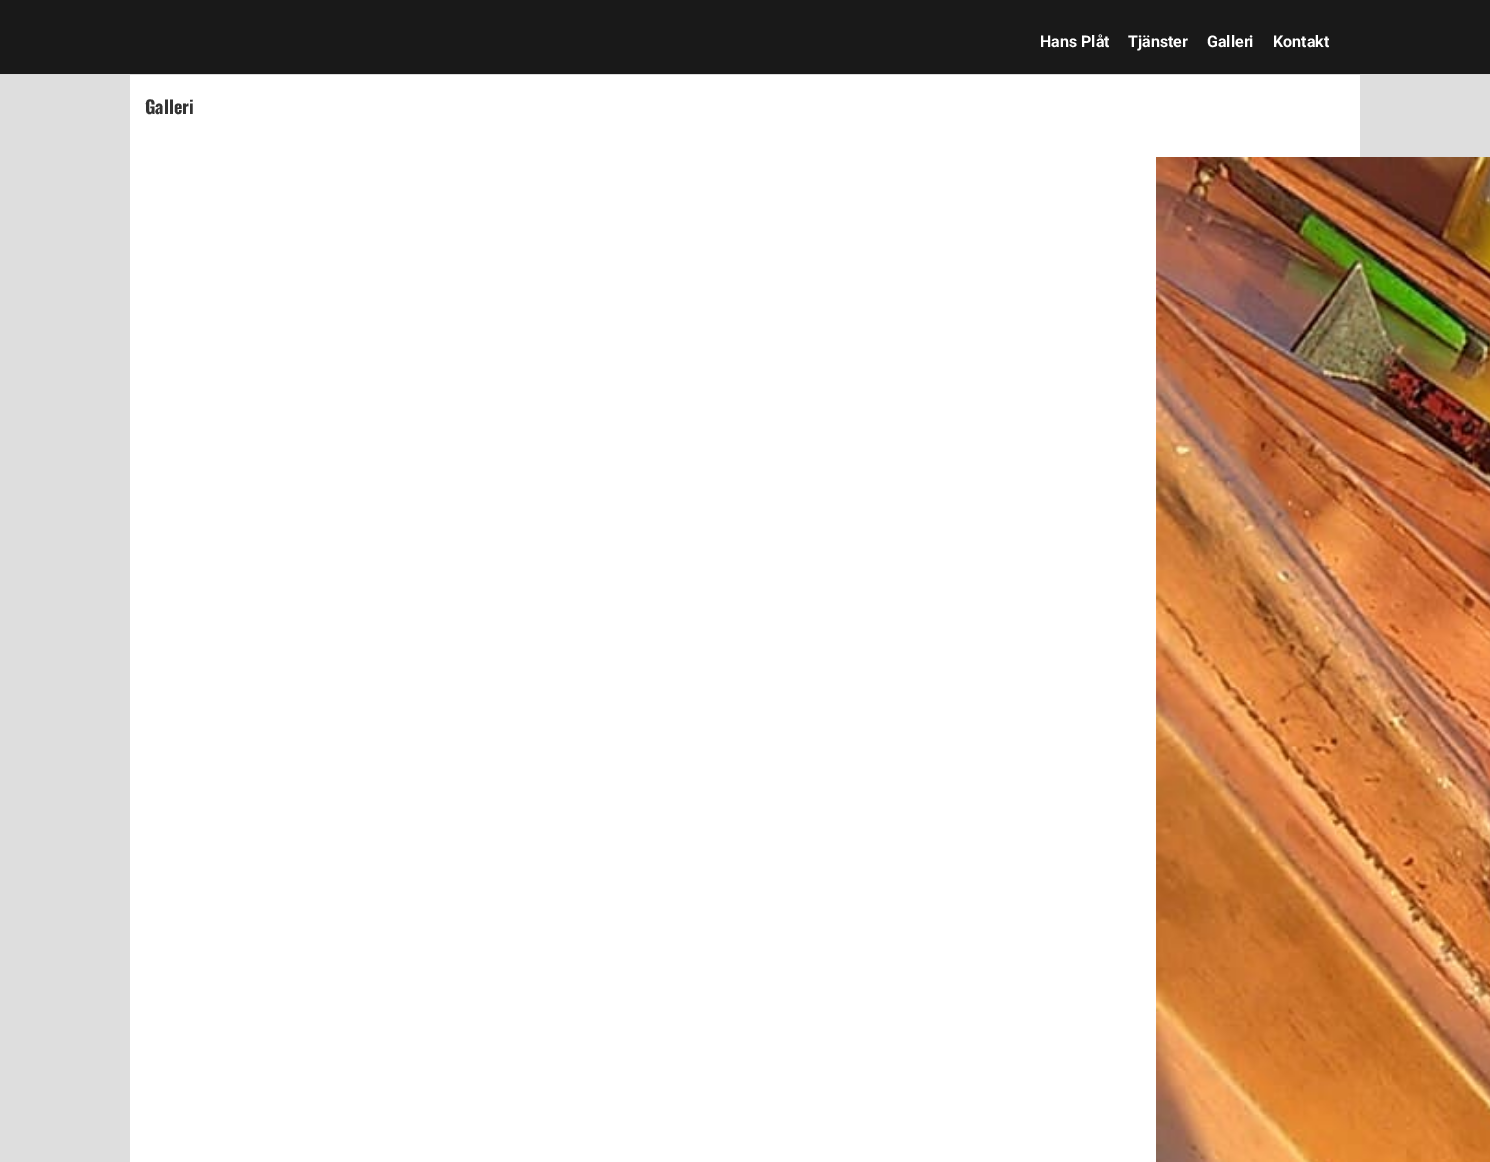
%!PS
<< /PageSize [1490 1162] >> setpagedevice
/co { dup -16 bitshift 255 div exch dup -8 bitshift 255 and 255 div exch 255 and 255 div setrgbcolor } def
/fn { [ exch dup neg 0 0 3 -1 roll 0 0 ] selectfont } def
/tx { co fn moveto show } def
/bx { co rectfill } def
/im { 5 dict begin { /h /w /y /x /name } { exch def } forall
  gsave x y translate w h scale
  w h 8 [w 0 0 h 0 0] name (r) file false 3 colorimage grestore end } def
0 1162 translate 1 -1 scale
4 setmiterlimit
0 0 1490 1162 16#DEDEDE bx
0 0 1490 74 16#191919 bx
0 74 1490 1 16#DADADA bx
130 75 1230 1087 16#FFFFFF bx
(media/1.raw) 1156 157 334 1005 im
(Hans Plåt) 1040 47 /Roboto-Bold 16 16#FFFFFF tx
(Tjänster) 1128 47 /Roboto-Bold 16 16#FFFFFF tx
(Galleri) 1207 47 /Roboto-Bold 16 16#FFFFFF tx
(Kontakt) 1273 47 /Roboto-Bold 16 16#FFFFFF tx
(Galleri) 145 114 /Oswald-Bold 18 16#333333 tx
showpage
